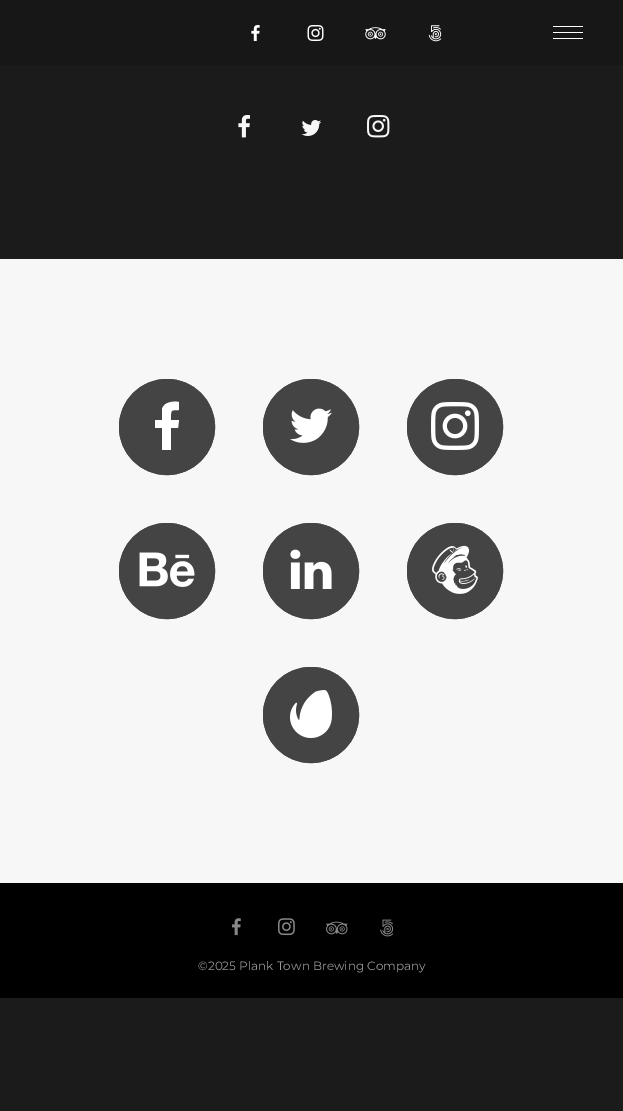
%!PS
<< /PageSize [623 1111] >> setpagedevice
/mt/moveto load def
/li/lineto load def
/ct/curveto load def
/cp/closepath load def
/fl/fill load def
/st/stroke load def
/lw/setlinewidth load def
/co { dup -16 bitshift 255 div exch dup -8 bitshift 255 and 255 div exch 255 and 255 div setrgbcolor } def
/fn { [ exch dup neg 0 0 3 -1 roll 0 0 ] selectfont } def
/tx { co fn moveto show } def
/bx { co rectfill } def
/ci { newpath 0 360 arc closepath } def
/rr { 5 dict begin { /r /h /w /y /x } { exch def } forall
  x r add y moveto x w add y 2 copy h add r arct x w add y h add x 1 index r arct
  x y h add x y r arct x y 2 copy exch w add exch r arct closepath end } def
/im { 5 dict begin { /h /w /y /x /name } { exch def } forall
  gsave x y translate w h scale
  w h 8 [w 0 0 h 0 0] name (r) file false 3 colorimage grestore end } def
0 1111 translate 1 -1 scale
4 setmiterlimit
0 0 623 1111 16#1B1B1B bx
0 0 623 65 16#171717 bx
(media/1.raw) 251 25 9 16 im
(media/2.raw) 307 25 17 16 im
(media/3.raw) 365 27 21 13 im
(media/4.raw) 428 25 14 17 im
16#FFFFFF co
553 26 30 1 .5 rr fl
553 32 30 1 .5 rr fl
553 38 30 1 .5 rr fl
(media/5.raw) 238 115 12 23 im
(media/6.raw) 301 120 20 16 im
(media/7.raw) 367 115 23 23 im
0 259 623 624 16#F7F7F7 bx
16#444444 co
2 lw
167 427 47 ci st
167 427 48 ci fl
16#FFFFFF co
171 450 mt 171 428 li 178 428 li 179 420 li 171 420 li 171 410 170 410 179 410 ct 179 402 li 173 401 164 402 162 409 ct 162 420 li 155 420 li 155 428 li 162 428 li 162 450 li cp fl
16#444444 co
311 427 47 ci st
311 427 48 ci fl
(media/8.raw) 290 408 42 35 im
455 427 47 ci st
455 427 48 ci fl
(media/9.raw) 431 402 48 48 im
167 571 47 ci st
167 571 48 ci fl
(media/10.raw) 139 552 56 35 im
311 571 47 ci st
311 571 48 ci fl
(media/11.raw) 290 549 42 40 im
455 571 47 ci st
455 571 48 ci fl
(media/12.raw) 432 545 46 49 im
311 715 47 ci st
311 715 48 ci fl
(media/13.raw) 290 690 42 48 im
0 883 623 115 16#000000 bx
(media/14.raw) 232 918 9 18 im
(media/15.raw) 278 918 17 18 im
(media/16.raw) 326 921 22 14 im
(media/17.raw) 380 919 14 18 im
(©2025 Plank Town Brewing Company) 198 970 /Montserrat-Regular 12 16#999999 tx
showpage
